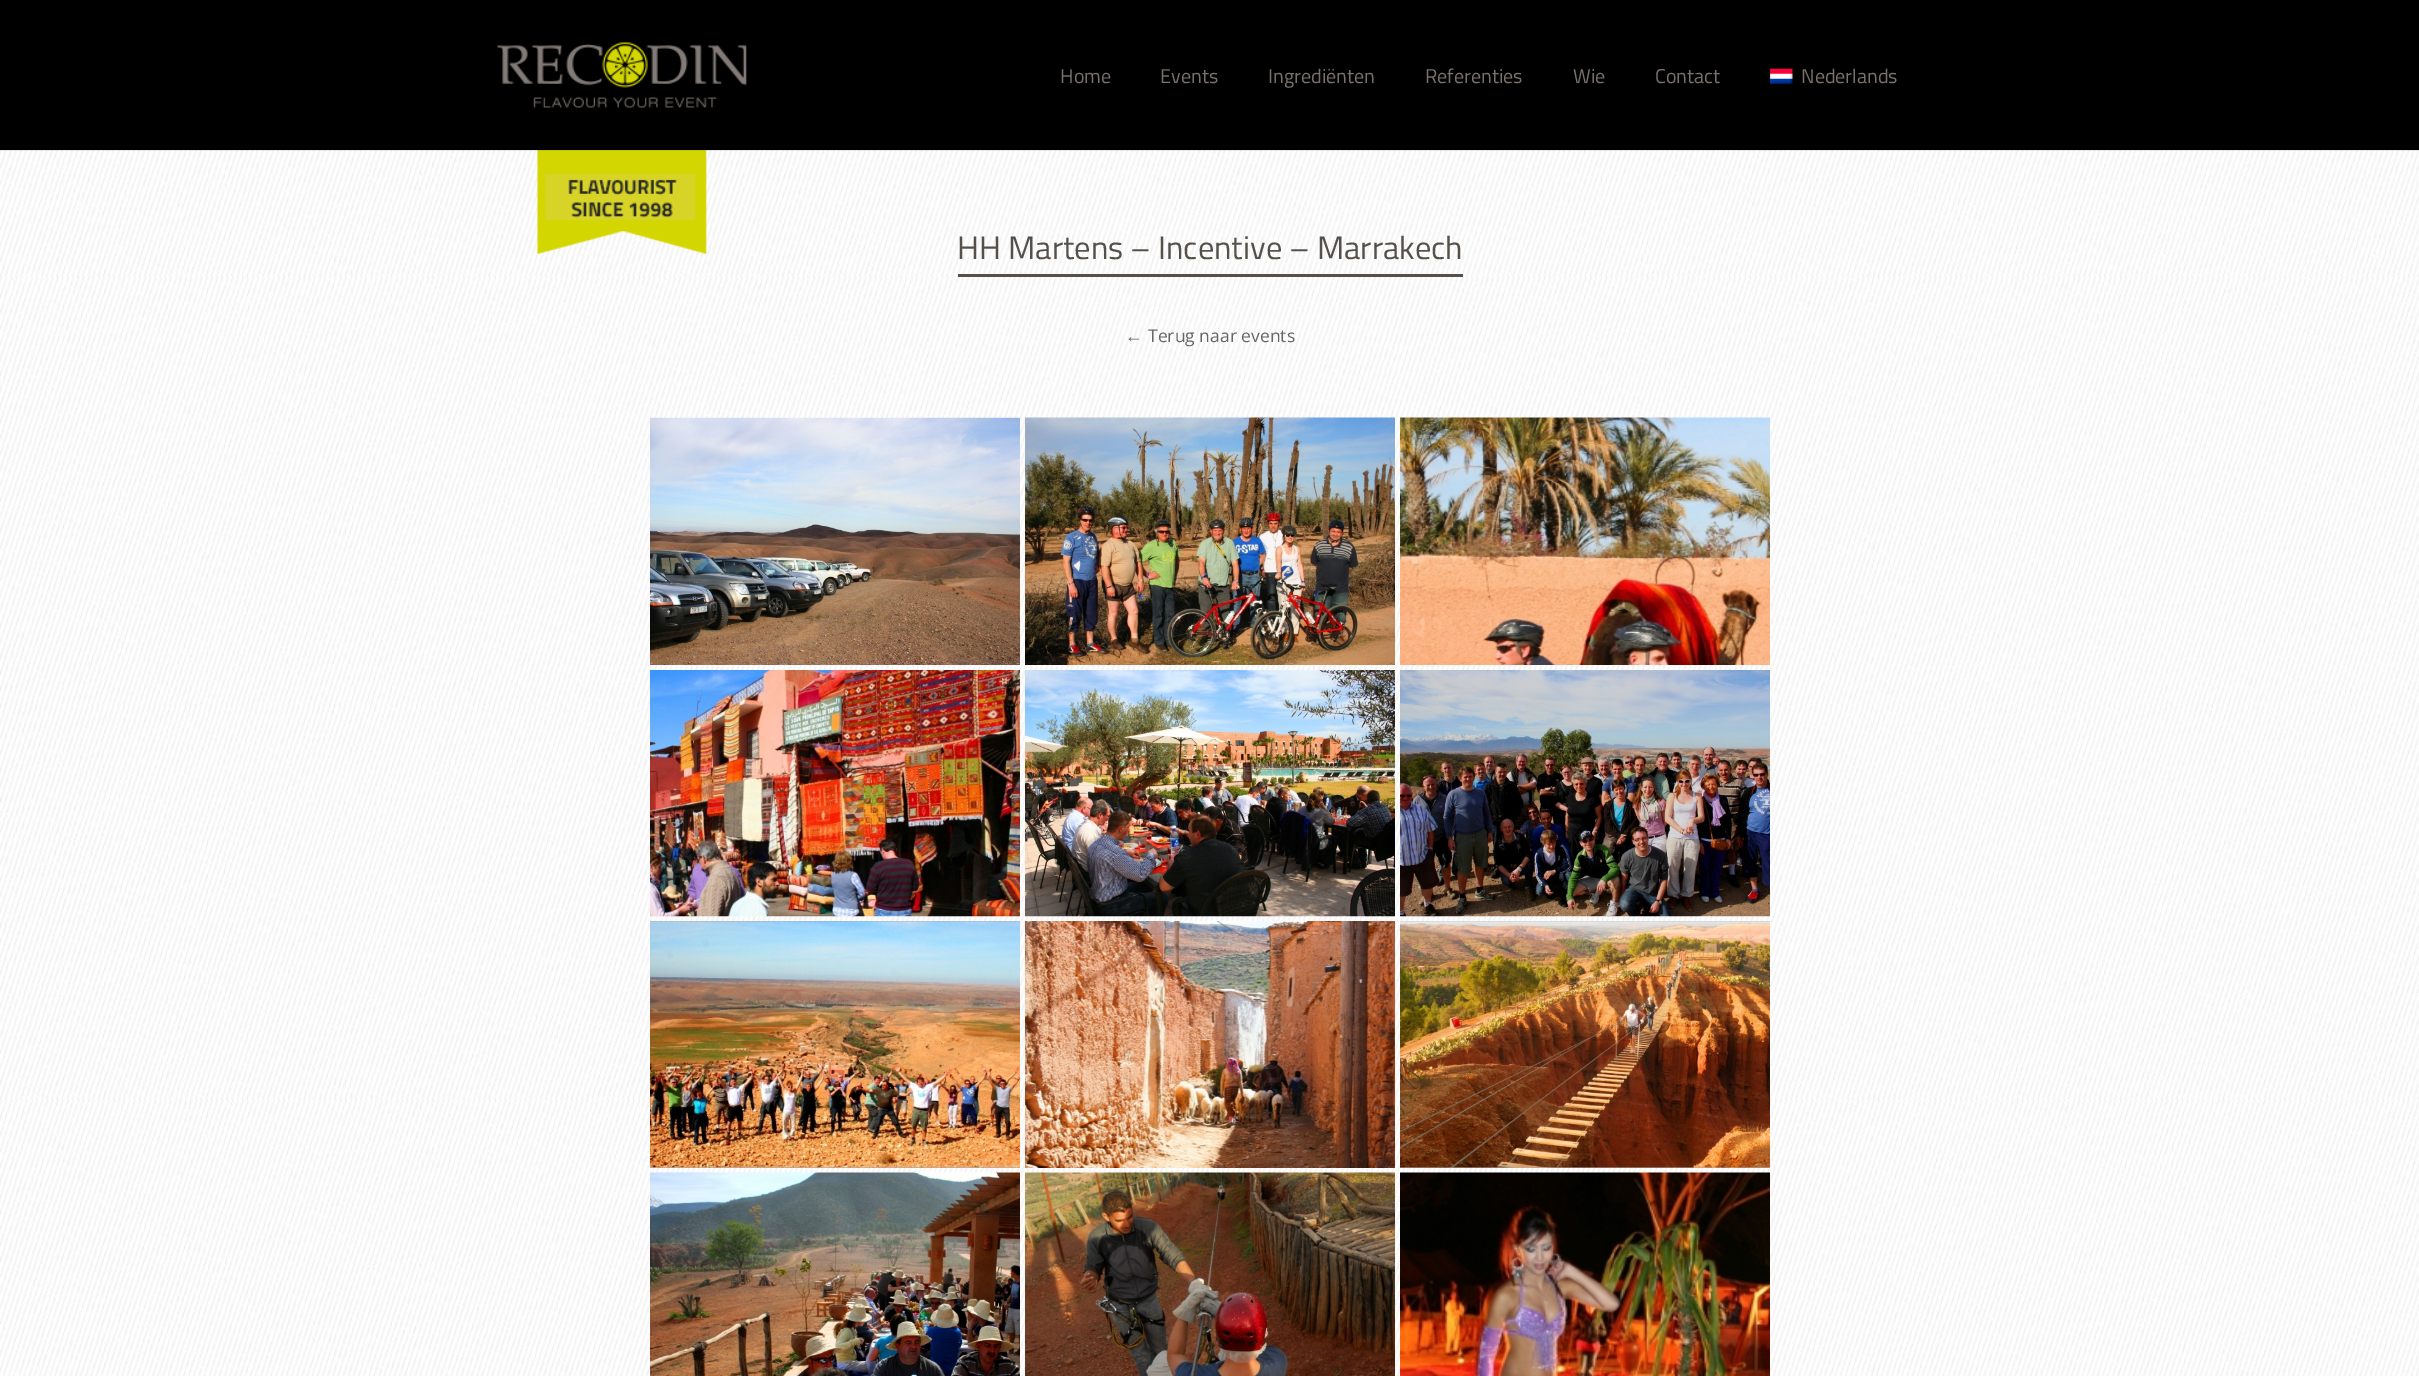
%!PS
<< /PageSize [2419 1376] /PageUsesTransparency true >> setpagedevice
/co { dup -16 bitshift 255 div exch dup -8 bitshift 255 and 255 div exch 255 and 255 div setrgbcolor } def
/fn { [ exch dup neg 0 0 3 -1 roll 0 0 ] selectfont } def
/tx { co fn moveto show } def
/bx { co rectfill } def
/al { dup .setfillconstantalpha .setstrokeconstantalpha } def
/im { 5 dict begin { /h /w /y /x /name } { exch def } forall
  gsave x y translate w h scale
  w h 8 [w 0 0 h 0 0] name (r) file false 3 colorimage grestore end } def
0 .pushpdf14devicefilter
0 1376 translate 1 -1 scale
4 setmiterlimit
0 0 2419 1376 16#FFFFFF bx
(media/4.raw) 0 150 2419 238 im
(media/3.raw) 537 150 170 104 im
0.08 al
1 150 2418 1 16#000000 bx
1 al
0 0 2419 150 16#000000 bx
(media/1.raw) 497 42 250 66 im
(media/2.raw) 1769 68 24 16 im
958 274 505 3 16#56504B bx
(media/5.raw) 0 388 2419 988 im
(media/6.raw) 650 417 370 248 im
(media/7.raw) 1025 417 370 248 im
(media/8.raw) 1400 417 370 248 im
(media/9.raw) 650 670 370 247 im
(media/10.raw) 1025 670 370 247 im
(media/11.raw) 1400 670 370 247 im
0.3 al
650 921 370 247 16#000000 bx
1 al
(media/12.raw) 650 921 370 247 im
(media/13.raw) 1025 921 370 247 im
0.3 al
1400 921 370 247 16#000000 bx
1 al
(media/14.raw) 1400 921 370 247 im
(media/15.raw) 650 1172 370 204 im
(media/16.raw) 1025 1172 370 204 im
(media/17.raw) 1400 1172 370 204 im
(Home) 1060 83 /TitilliumWeb-Regular 20 16#7A716C tx
(Events) 1160 83 /TitilliumWeb-Regular 20 16#7A716C tx
(Ingrediënten) 1268 83 /TitilliumWeb-Regular 20 16#7A716C tx
(Referenties) 1425 83 /TitilliumWeb-Regular 20 16#7A716C tx
(Wie) 1573 83 /TitilliumWeb-Regular 20 16#7A716C tx
(Contact) 1655 83 /TitilliumWeb-Regular 20 16#7A716C tx
(Nederlands) 1801 83 /TitilliumWeb-Regular 20 16#7A716C tx
(HH Martens – Incentive – Marrakech) 957 259 /TitilliumWeb-Regular 32.5 16#56504B tx
(←) 1125 342 /LiberationSans-Regular 17.5 16#666666 tx
(Terug naar events) 1148 342 /OpenSans-Regular 17.5 16#666666 tx
.poppdf14devicefilter showpage
